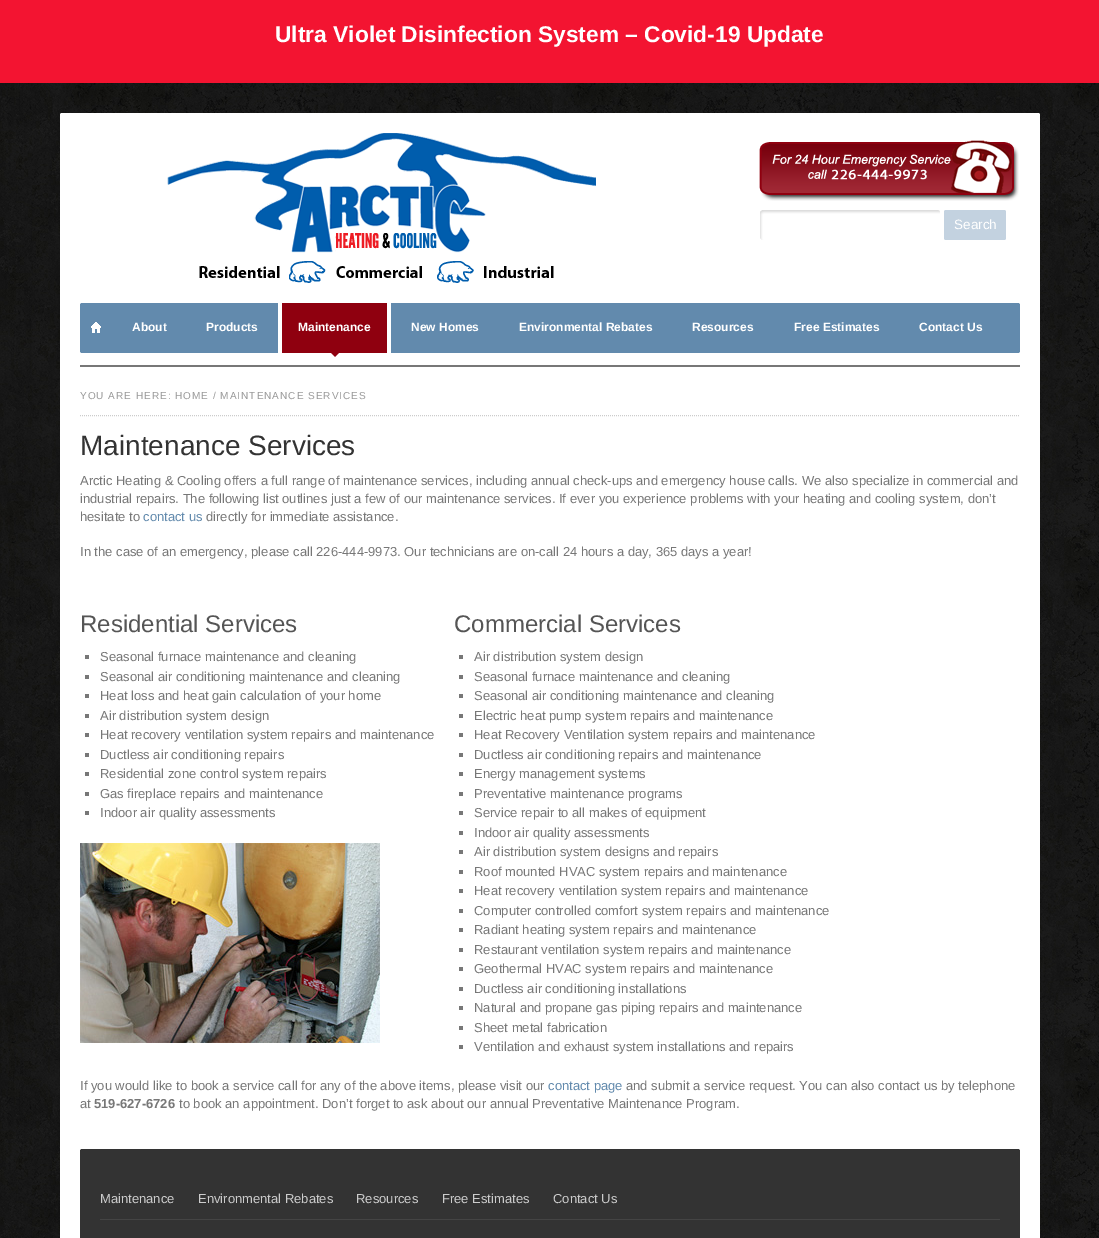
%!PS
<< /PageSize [1099 1238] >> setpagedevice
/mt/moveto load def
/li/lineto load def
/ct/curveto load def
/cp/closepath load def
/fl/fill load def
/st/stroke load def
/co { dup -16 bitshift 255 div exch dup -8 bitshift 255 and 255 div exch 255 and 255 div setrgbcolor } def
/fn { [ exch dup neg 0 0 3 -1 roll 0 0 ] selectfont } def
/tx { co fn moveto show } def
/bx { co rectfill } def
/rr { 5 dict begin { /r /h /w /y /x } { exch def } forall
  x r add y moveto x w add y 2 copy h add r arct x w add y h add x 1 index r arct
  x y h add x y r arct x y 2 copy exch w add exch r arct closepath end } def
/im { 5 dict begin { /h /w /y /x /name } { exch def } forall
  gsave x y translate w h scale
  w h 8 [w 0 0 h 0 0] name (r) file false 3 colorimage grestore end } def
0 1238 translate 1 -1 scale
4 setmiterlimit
0 0 1099 1238 16#FFFFFF bx
(media/1.raw) 0 83 1099 1155 im
0 0 1099 83 16#F31431 bx
16#FFFFFF co
60 113 980 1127 2 rr fl
(media/2.raw) 167 133 429 150 im
(media/3.raw) 759 140 260 61 im
(media/4.raw) 760 210 180 30 im
16#C3D2E0 co
944 210 62 30 2 rr fl
80 365 940 2 16#777777 bx
16#628AAD co
82 303 mt 112 303 li 112 353 li 82 353 li 81 353 80 352 80 351 ct 80 305 li 80 304 81 303 82 303 ct cp fl
(media/5.raw) 91 322 10 11 im
112 303 mt 1018 303 li 1019 303 1020 304 1020 305 ct 1020 351 li 1020 352 1019 353 1018 353 ct 112 353 li cp fl
282 303 105 54 16#8F000F bx
(media/6.raw) 282 353 105 6 im
387 303 4 56 16#FFFFFF bx
278 303 4 56 16#FFFFFF bx
16#CCCCCC co
[1 1] 0 setdash
80 415.5 mt 1020 415.5 li st
85 655 4 4 16#777777 bx
85 675 4 4 16#777777 bx
85 694 4 4 16#777777 bx
85 714 4 4 16#777777 bx
85 733 4 4 16#777777 bx
85 753 4 4 16#777777 bx
85 772 4 4 16#777777 bx
85 792 4 4 16#777777 bx
85 811 4 4 16#777777 bx
(media/7.raw) 80 843 300 200 im
459 655 4 4 16#777777 bx
459 675 4 4 16#777777 bx
459 694 4 4 16#777777 bx
459 714 4 4 16#777777 bx
459 733 4 4 16#777777 bx
459 753 4 4 16#777777 bx
459 772 4 4 16#777777 bx
459 792 4 4 16#777777 bx
459 811 4 4 16#777777 bx
459 831 4 4 16#777777 bx
459 850 4 4 16#777777 bx
459 870 4 4 16#777777 bx
459 889 4 4 16#777777 bx
459 909 4 4 16#777777 bx
459 928 4 4 16#777777 bx
459 948 4 4 16#777777 bx
459 967 4 4 16#777777 bx
459 987 4 4 16#777777 bx
459 1006 4 4 16#777777 bx
459 1026 4 4 16#777777 bx
459 1045 4 4 16#777777 bx
16#333333 co
82 1149 mt 1018 1149 li 1019 1149 1020 1150 1020 1151 ct 1020 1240 li 80 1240 li 80 1151 li 80 1150 81 1149 82 1149 ct cp fl
100 1219 900 1 16#444444 bx
(Ultra Violet Disinfection System – Covid-19 Update) 275 42 /LiberationSans-Bold 22.75 16#FFFFFF tx
(Search) 954 229 /LiberationSans-Regular 13.5 16#FFFFFF tx
(About) 132 331 /LiberationSans-Bold 12 16#FFFFFF tx
(Products) 206 331 /LiberationSans-Bold 12 16#FFFFFF tx
(Maintenance) 298 331 /LiberationSans-Bold 12 16#FFFFFF tx
(New Homes) 411 331 /LiberationSans-Bold 12 16#FFFFFF tx
(Environmental Rebates) 519 331 /LiberationSans-Bold 12 16#FFFFFF tx
(Resources) 692 331 /LiberationSans-Bold 12 16#FFFFFF tx
(Free Estimates) 794 331 /LiberationSans-Bold 12 16#FFFFFF tx
(Contact Us) 919 331 /LiberationSans-Bold 12 16#FFFFFF tx
/LiberationSans-Regular 10 fn
16#999999 co
80 399 mt 1 0 (YOU ARE HERE: HOME / MAINTENANCE SERVICES) ashow
(Maintenance Services) 80 455 /LiberationSans-Regular 28 16#333333 tx
(Arctic Heating & Cooling offers a full range of maintenance services, including annual check-ups and emergency house calls. We also specialize in commercial and) 80 485 /LiberationSans-Regular 13 16#777777 tx
(industrial repairs. The following list outlines just a few of our maintenance services. If ever you experience problems with your heating and cooling system, don’t) 80 503 /LiberationSans-Regular 13 16#777777 tx
(hesitate to) 80 521 /LiberationSans-Regular 13 16#777777 tx
(contact us) 143 521 /LiberationSans-Regular 13 16#628AAD tx
(directly for immediate assistance.) 206 521 /LiberationSans-Regular 13 16#777777 tx
(In the case of an emergency, please call 226-444-9973. Our technicians are on-call 24 hours a day, 365 days a year!) 80 556 /LiberationSans-Regular 13 16#777777 tx
(Residential Services) 80 632 /LiberationSans-Regular 24 16#555555 tx
(Seasonal furnace maintenance and cleaning) 100 661 /LiberationSans-Regular 13 16#777777 tx
(Seasonal air conditioning maintenance and cleaning) 100 681 /LiberationSans-Regular 13 16#777777 tx
(Heat loss and heat gain calculation of your home) 100 700 /LiberationSans-Regular 13 16#777777 tx
(Air distribution system design) 100 720 /LiberationSans-Regular 13 16#777777 tx
(Heat recovery ventilation system repairs and maintenance) 100 739 /LiberationSans-Regular 13 16#777777 tx
(Ductless air conditioning repairs) 100 759 /LiberationSans-Regular 13 16#777777 tx
(Residential zone control system repairs) 100 778 /LiberationSans-Regular 13 16#777777 tx
(Gas fireplace repairs and maintenance) 100 798 /LiberationSans-Regular 13 16#777777 tx
(Indoor air quality assessments) 100 817 /LiberationSans-Regular 13 16#777777 tx
(Commercial Services) 454 632 /LiberationSans-Regular 24 16#555555 tx
(Air distribution system design) 474 661 /LiberationSans-Regular 13 16#777777 tx
(Seasonal furnace maintenance and cleaning) 474 681 /LiberationSans-Regular 13 16#777777 tx
(Seasonal air conditioning maintenance and cleaning) 474 700 /LiberationSans-Regular 13 16#777777 tx
(Electric heat pump system repairs and maintenance) 474 720 /LiberationSans-Regular 13 16#777777 tx
(Heat Recovery Ventilation system repairs and maintenance) 474 739 /LiberationSans-Regular 13 16#777777 tx
(Ductless air conditioning repairs and maintenance) 474 759 /LiberationSans-Regular 13 16#777777 tx
(Energy management systems) 474 778 /LiberationSans-Regular 13 16#777777 tx
(Preventative maintenance programs) 474 798 /LiberationSans-Regular 13 16#777777 tx
(Service repair to all makes of equipment) 474 817 /LiberationSans-Regular 13 16#777777 tx
(Indoor air quality assessments) 474 837 /LiberationSans-Regular 13 16#777777 tx
(Air distribution system designs and repairs) 474 856 /LiberationSans-Regular 13 16#777777 tx
(Roof mounted HVAC system repairs and maintenance) 474 876 /LiberationSans-Regular 13 16#777777 tx
(Heat recovery ventilation system repairs and maintenance) 474 895 /LiberationSans-Regular 13 16#777777 tx
(Computer controlled comfort system repairs and maintenance) 474 915 /LiberationSans-Regular 13 16#777777 tx
(Radiant heating system repairs and maintenance) 474 934 /LiberationSans-Regular 13 16#777777 tx
(Restaurant ventilation system repairs and maintenance) 474 954 /LiberationSans-Regular 13 16#777777 tx
(Geothermal HVAC system repairs and maintenance) 474 973 /LiberationSans-Regular 13 16#777777 tx
(Ductless air conditioning installations) 474 993 /LiberationSans-Regular 13 16#777777 tx
(Natural and propane gas piping repairs and maintenance) 474 1012 /LiberationSans-Regular 13 16#777777 tx
(Sheet metal fabrication) 474 1032 /LiberationSans-Regular 13 16#777777 tx
(Ventilation and exhaust system installations and repairs) 474 1051 /LiberationSans-Regular 13 16#777777 tx
(If you would like to book a service call for any of the above items, please visit our) 80 1090 /LiberationSans-Regular 13 16#777777 tx
(contact page) 548 1090 /LiberationSans-Regular 13 16#628AAD tx
(and submit a service request. You can also contact us by telephone) 626 1090 /LiberationSans-Regular 13 16#777777 tx
(at) 80 1108 /LiberationSans-Regular 13 16#777777 tx
(519-627-6726) 94 1108 /LiberationSans-Bold 13 16#777777 tx
(to book an appointment. Don’t forget to ask about our annual Preventative Maintenance Program.) 179 1108 /LiberationSans-Regular 13 16#777777 tx
(Maintenance) 100 1203 /LiberationSans-Regular 13 16#CCCCCC tx
(Environmental Rebates) 198 1203 /LiberationSans-Regular 13 16#CCCCCC tx
(Resources) 356 1203 /LiberationSans-Regular 13 16#CCCCCC tx
(Free Estimates) 442 1203 /LiberationSans-Regular 13 16#CCCCCC tx
(Contact Us) 553 1203 /LiberationSans-Regular 13 16#CCCCCC tx
showpage
